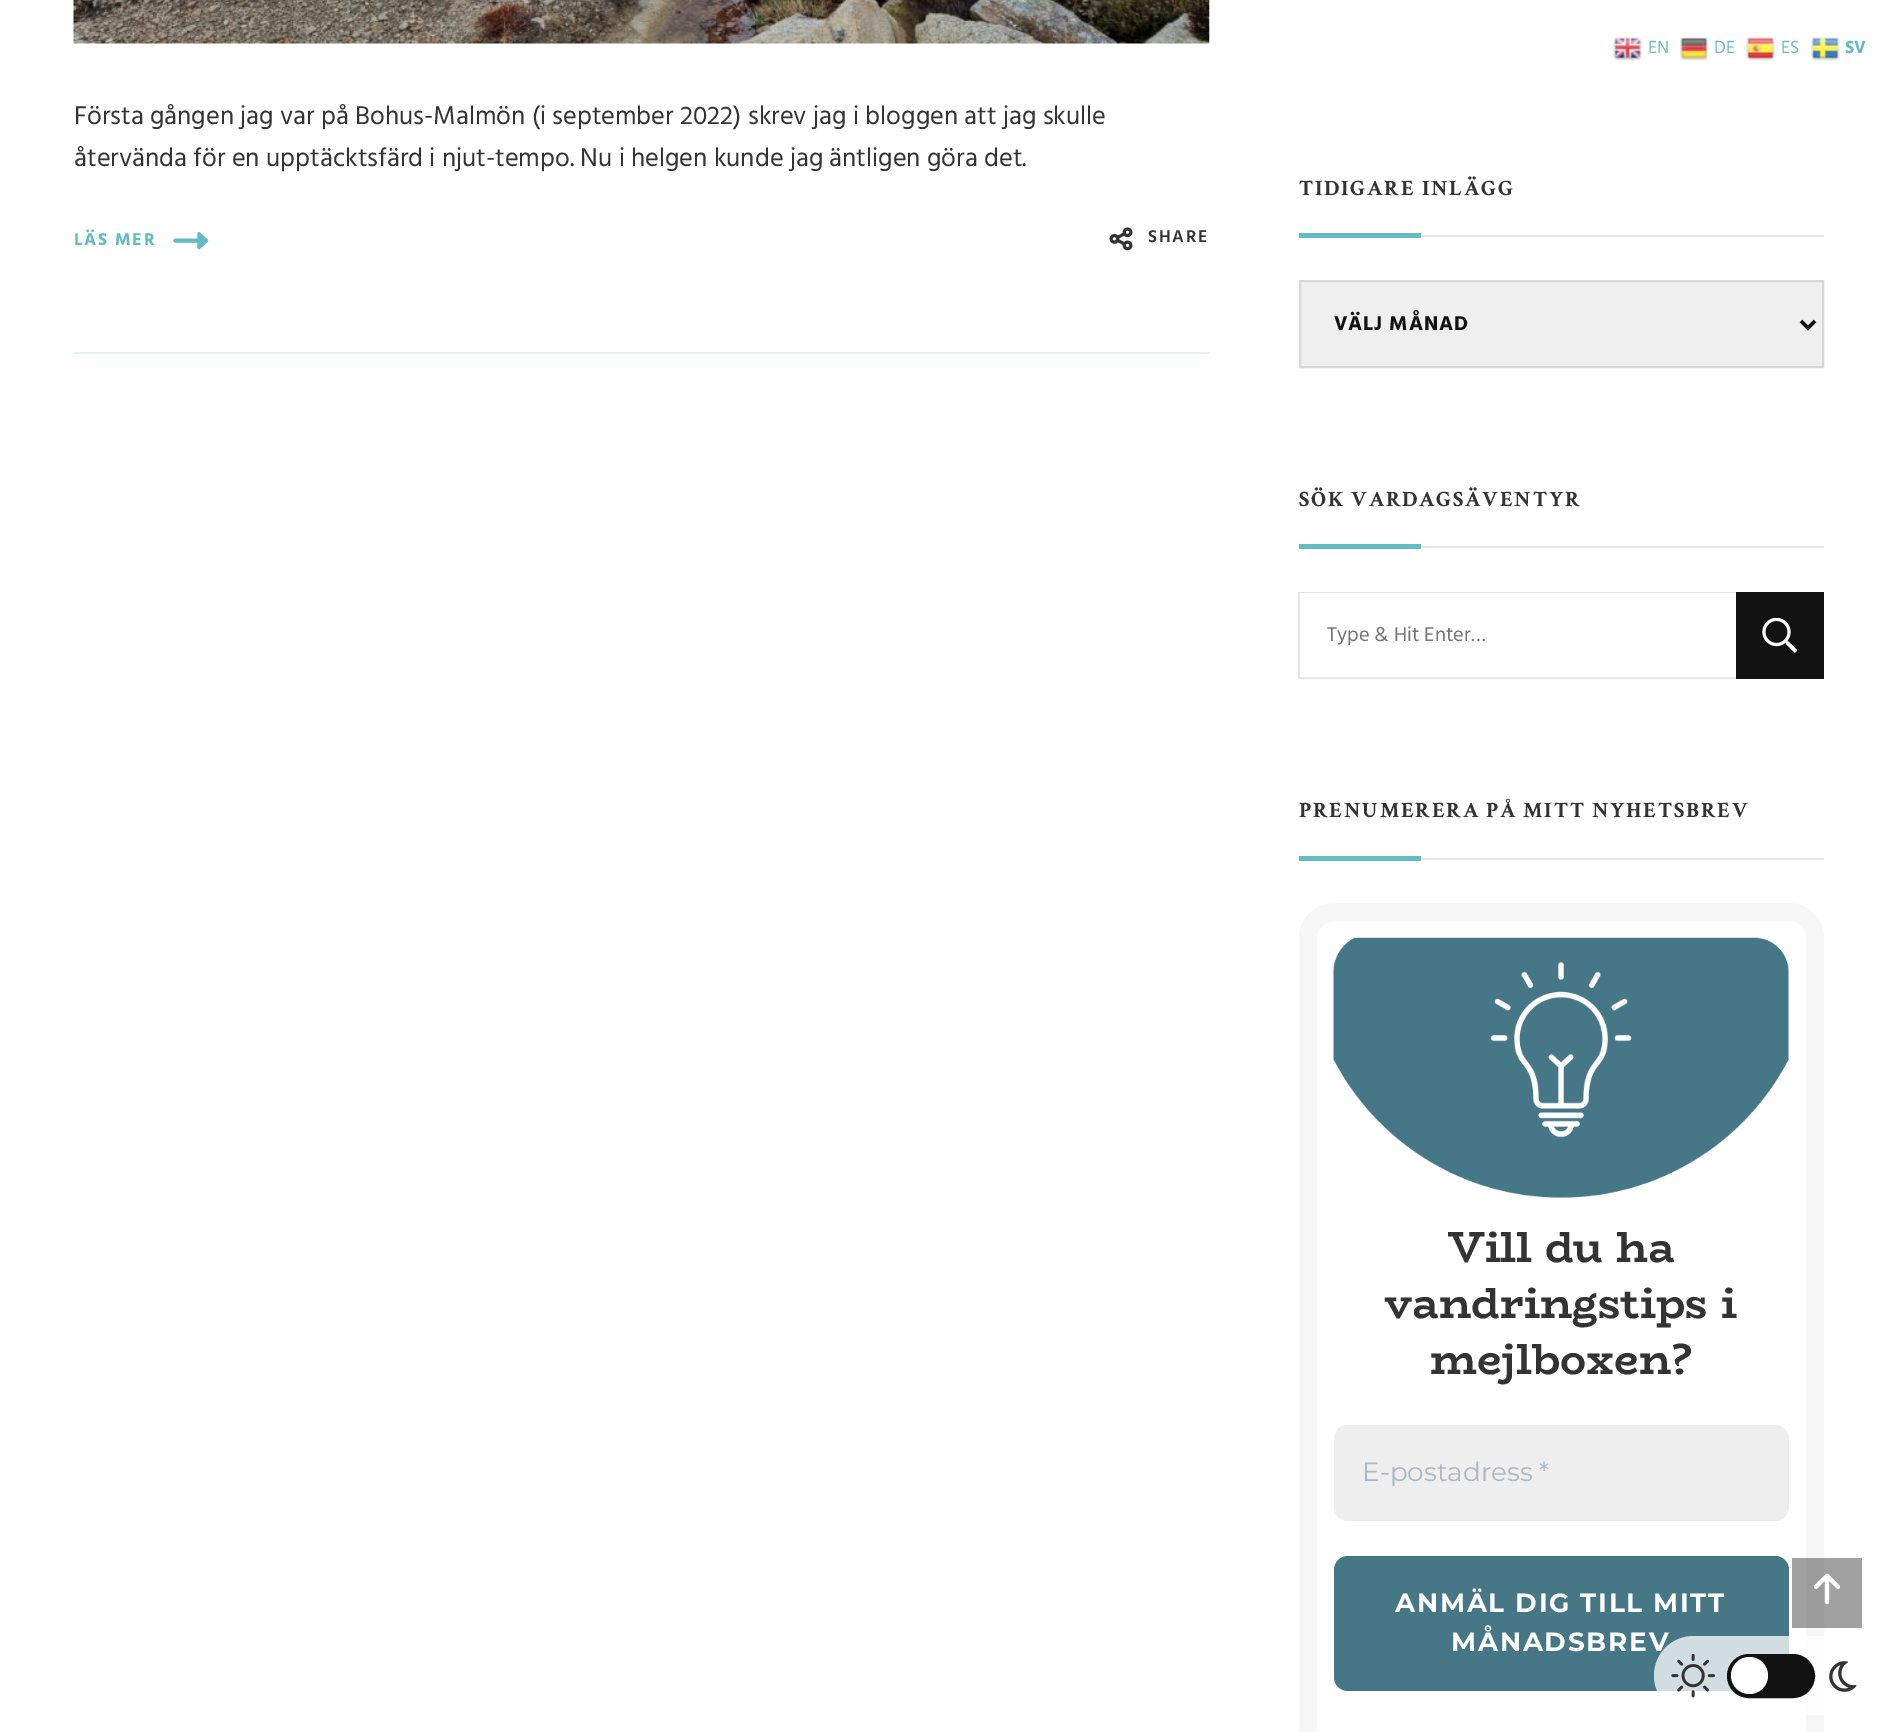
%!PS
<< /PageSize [1896 1732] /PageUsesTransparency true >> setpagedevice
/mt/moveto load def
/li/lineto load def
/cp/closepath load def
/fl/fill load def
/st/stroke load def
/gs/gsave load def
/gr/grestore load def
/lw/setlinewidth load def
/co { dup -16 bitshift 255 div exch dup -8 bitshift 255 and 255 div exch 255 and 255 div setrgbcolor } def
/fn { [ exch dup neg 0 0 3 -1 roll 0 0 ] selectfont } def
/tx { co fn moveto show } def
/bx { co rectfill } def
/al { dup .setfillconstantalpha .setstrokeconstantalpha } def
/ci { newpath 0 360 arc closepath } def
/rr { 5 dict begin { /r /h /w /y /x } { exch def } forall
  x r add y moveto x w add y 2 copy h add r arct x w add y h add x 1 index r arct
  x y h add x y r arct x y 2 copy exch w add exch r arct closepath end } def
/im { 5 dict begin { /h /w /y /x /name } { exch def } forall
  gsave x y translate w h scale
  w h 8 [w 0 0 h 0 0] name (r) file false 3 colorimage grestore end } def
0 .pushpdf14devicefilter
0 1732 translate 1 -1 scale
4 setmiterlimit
0 0 1896 1732 16#FFFFFF bx
(media/1.raw) 1613 37 29 24 im
(media/2.raw) 1680 37 28 24 im
(media/3.raw) 1746 37 29 24 im
(media/4.raw) 1811 37 29 24 im
74 352 1135 2 16#E0F1F4 bx
(media/5.raw) 73 0 1137 44 im
(media/6.raw) 173 231 36 19 im
(media/7.raw) 1109 227 24 24 im
1421 235 403 2 16#E6E6E6 bx
1299 233 122 5 16#63BBC6 bx
16#EFEFEF co
1300 281 mt 1823 281 li 1823 367 li 1300 367 li cp gs fl gr
16#D7D7D7 co
2 lw
st
16#121212 co
3.5 lw
1801 321 mt 1808 328 li 1815 321 li st
1421 546 403 2 16#E6E6E6 bx
1299 544 122 5 16#63BBC6 bx
16#E6E6E6 co
1298 592 mt 1736 592 li 1736 593 li 1300 593 li cp fl
1736 679 mt 1298 679 li 1300 677 li 1736 677 li cp fl
0.1 al
16#000000 co
1298 679 mt 1298 592 li 1300 593 li 1300 677 li cp fl
1 al
1736 592 88 87 16#121212 bx
(media/8.raw) 1762 618 35 35 im
1421 858 403 2 16#E6E6E6 bx
1299 856 122 5 16#63BBC6 bx
16#F7F7F7 co
18 lw
1308 912 507 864 26 rr st
(media/9.raw) 1333 937 456 261 im
16#EEEEEE co
1334 1425 455 96 14 rr fl
16#467787 co
1334 1556 455 135 14 rr fl
0.37 al
1792 1558 70 70 16#000000 bx
1 al
(media/10.raw) 1813 1573 28 32 im
(EN) 1648 53 /Hind-Regular 18 16#63BBC6 tx
(DE) 1714 53 /Hind-Regular 18 16#63BBC6 tx
(ES) 1781 53 /Hind-Regular 18 16#63BBC6 tx
(SV) 1845 53 /Hind-Bold 18 16#63BBC6 tx
(Första gången jag var på Bohus-Malmön \(i september 2022\) skrev jag i bloggen att jag skulle) 74 124 /Hind-Regular 26.25 16#333333 tx
(återvända för en upptäcktsfärd i njut-tempo. Nu i helgen kunde jag äntligen göra det.) 74 166 /Hind-Regular 26.25 16#333333 tx
/Hind-Bold 17.5 fn
16#63BBC6 co
74 245 mt 1.75 0 (LÄS MER) ashow
/Hind-SemiBold 17.5 fn
16#333333 co
1148 242 mt 1.75 0 (SHARE) ashow
/CrimsonText-Bold 21.9 fn
1299 195 mt 1.75 0 (TIDIGARE INLÄGG) ashow
/Hind-Bold 20.5 fn
16#121212 co
1334 330 mt .9 0 (VÄLJ MÅNAD) ashow
/CrimsonText-Bold 21.9 fn
16#333333 co
1299 506 mt 1.75 0 (SÖK VARDAGSÄVENTYR) ashow
(Type & Hit Enter…) 1327 641 /Hind-Regular 20.5 16#757575 tx
/CrimsonText-Bold 21.9 fn
16#333333 co
1299 817 mt 1.75 0 (PRENUMERERA PÅ MITT NYHETSBREV) ashow
(Vill du ha) 1448 1262 /BioRhyme-Bold 43.75 16#333333 tx
(vandringstips i) 1384 1318 /BioRhyme-Bold 43.75 16#333333 tx
(mejlboxen?) 1430 1374 /BioRhyme-Bold 43.75 16#333333 tx
(E-postadress *) 1362 1481 /Montserrat-Regular 26.25 16#ABB8C3 tx
/Montserrat-Bold 26.25 fn
16#FFFFFF co
1395 1612 mt 1.75 0 (ANMÄL DIG TILL MITT) ashow
1451 1651 mt 1.75 0 (MÅNADSBREV) ashow
0.75 al
1654 1636 226 79 39.5 rr fl
1 al
(media/11.raw) 1671 1654 44 44 im
16#121212 co
1729 1656 84 40 20 rr gs fl gr
4 lw
st
16#FFFFFF co
1749.5 1675.5 18.5 ci fl
(media/12.raw) 1829 1661 28 31 im
.poppdf14devicefilter showpage
